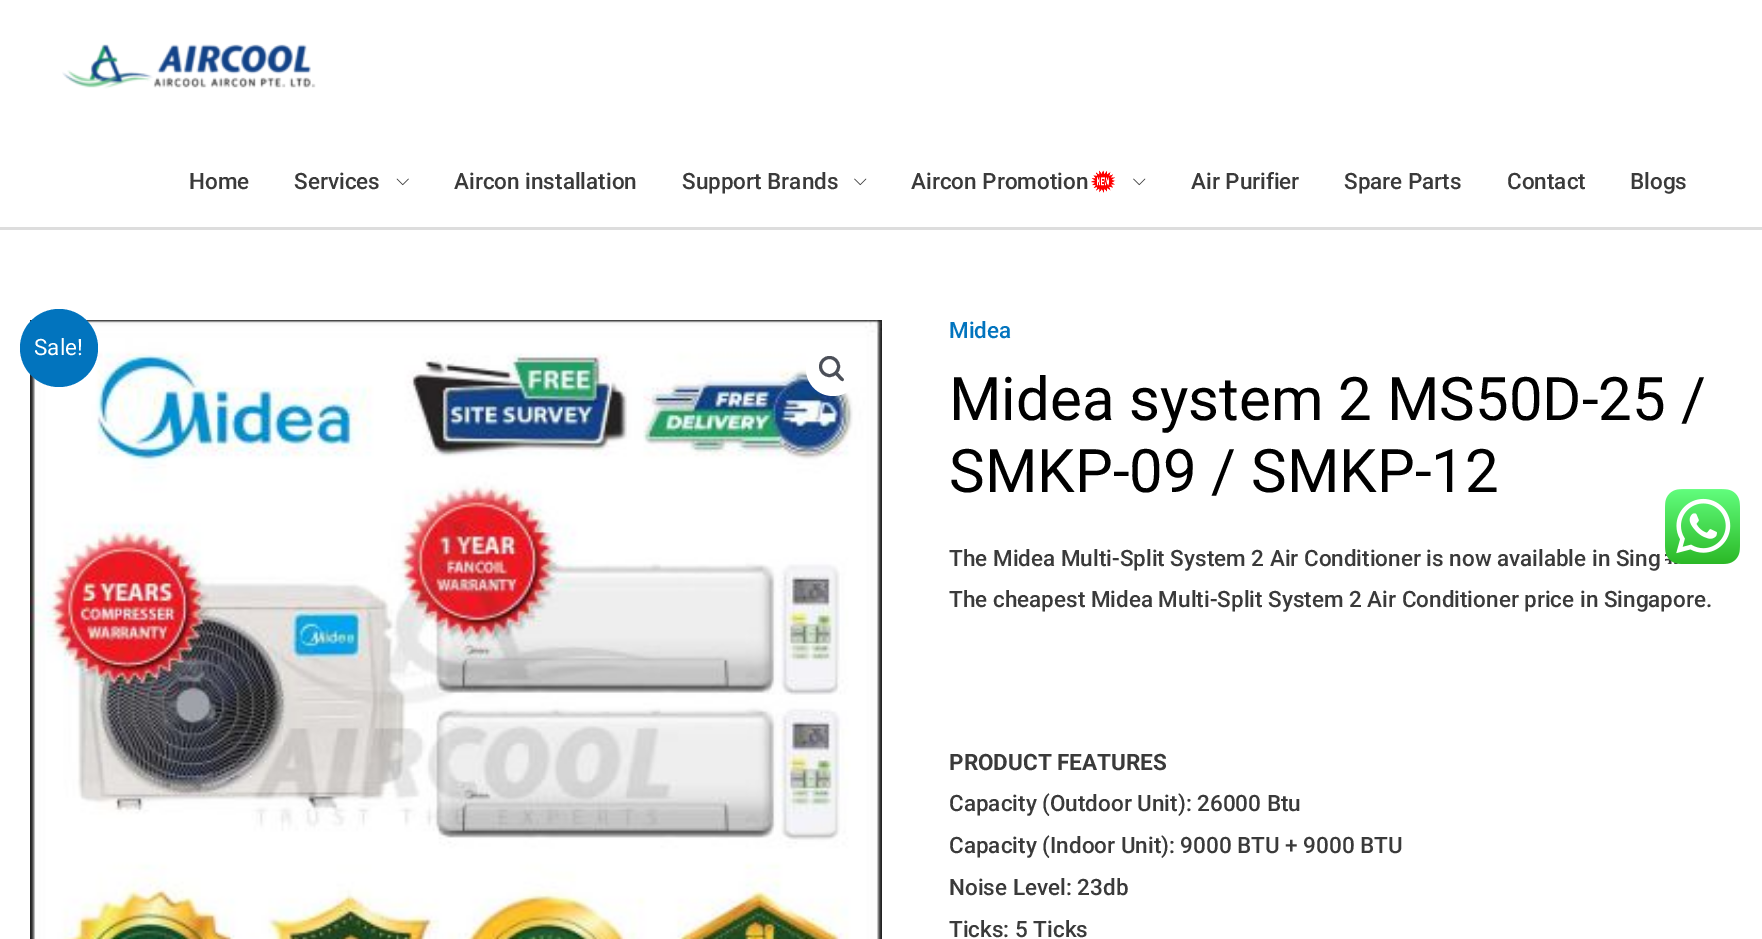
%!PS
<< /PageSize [1762 939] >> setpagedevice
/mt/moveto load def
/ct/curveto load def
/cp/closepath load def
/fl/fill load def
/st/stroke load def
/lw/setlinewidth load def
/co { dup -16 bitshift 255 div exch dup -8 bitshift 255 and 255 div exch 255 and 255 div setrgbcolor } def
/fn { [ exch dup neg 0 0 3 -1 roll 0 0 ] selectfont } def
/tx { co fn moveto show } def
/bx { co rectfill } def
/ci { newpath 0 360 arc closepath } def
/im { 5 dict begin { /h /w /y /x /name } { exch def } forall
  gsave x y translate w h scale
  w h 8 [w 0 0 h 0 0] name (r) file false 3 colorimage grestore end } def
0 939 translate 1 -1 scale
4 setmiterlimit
0 0 1762 939 16#FFFFFF bx
0 227 1762 3 16#DDDDDD bx
(media/1.raw) 62 44 254 45 im
(media/2.raw) 396 178 13 8 im
(media/3.raw) 854 178 13 8 im
(media/4.raw) 1091 170 25 23 im
(media/3.raw) 1133 178 13 8 im
(media/5.raw) 30 320 852 619 im
16#FFFFFF co
833 369 27 ci fl
16#4B4F58 co
3 lw
829.5 366.5 9 ci st
835 372.5 mt 836.5 370.5 839.5 374.5 840.5 375.5 ct 841 376.5 845 379 843.5 380.5 ct 842 382.5 839 378.5 838 377.5 ct 837.5 376.5 833.5 374 835 372.5 ct cp fl
16#0274BE co
59 348 39 ci fl
(media/6.raw) 1665 489 75 75 im
(Home) 189 189 /Roboto-Medium 22.5 16#3A3A3A tx
(Services) 294 189 /Roboto-Medium 22.5 16#3A3A3A tx
(Aircon installation) 454 189 /Roboto-Medium 22.5 16#3A3A3A tx
(Support Brands) 682 189 /Roboto-Medium 22.5 16#3A3A3A tx
(Aircon Promotion) 911 189 /Roboto-Medium 22.5 16#3A3A3A tx
(Air Purifier) 1191 189 /Roboto-Medium 22.5 16#3A3A3A tx
(Spare Parts) 1344 189 /Roboto-Medium 22.5 16#3A3A3A tx
(Contact) 1507 189 /Roboto-Medium 22.5 16#3A3A3A tx
(Blogs) 1630 189 /Roboto-Medium 22.5 16#3A3A3A tx
(Midea) 949 338 /Roboto-Medium 22.5 16#0274BE tx
(Midea system 2 MS50D-25 /) 949 420 /Roboto-Regular 60 16#000000 tx
(SMKP-09 / SMKP-12) 949 492 /Roboto-Regular 60 16#000000 tx
(The Midea Multi-Split System 2 Air Conditioner is now available in Sing) 949 566 /Roboto-Medium 22.5 16#3A3A3A tx
(The cheapest Midea Multi-Split System 2 Air Conditioner price in Singapore.) 949 607 /Roboto-Medium 22.5 16#3A3A3A tx
(PRODUCT FEATURES) 949 770 /Roboto-Bold 22.5 16#3A3A3A tx
(Capacity \(Outdoor Unit\): 26000 Btu) 949 811 /Roboto-Medium 22.5 16#3A3A3A tx
(Capacity \(Indoor Unit\): 9000 BTU + 9000 BTU) 949 853 /Roboto-Medium 22.5 16#3A3A3A tx
(Noise Level: 23db) 949 895 /Roboto-Medium 22.5 16#3A3A3A tx
(Ticks: 5 Ticks) 949 937 /Roboto-Medium 22.5 16#3A3A3A tx
(Sale!) 34 355 /Roboto-Regular 22.5 16#FFFFFF tx
showpage
